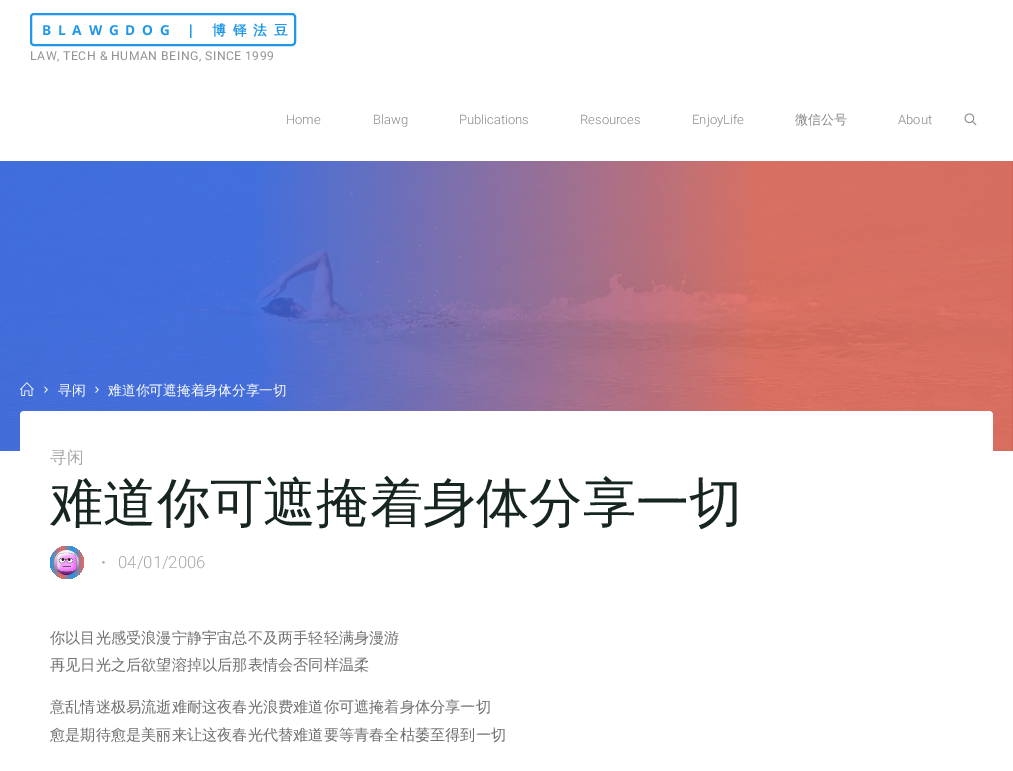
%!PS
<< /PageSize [1013 771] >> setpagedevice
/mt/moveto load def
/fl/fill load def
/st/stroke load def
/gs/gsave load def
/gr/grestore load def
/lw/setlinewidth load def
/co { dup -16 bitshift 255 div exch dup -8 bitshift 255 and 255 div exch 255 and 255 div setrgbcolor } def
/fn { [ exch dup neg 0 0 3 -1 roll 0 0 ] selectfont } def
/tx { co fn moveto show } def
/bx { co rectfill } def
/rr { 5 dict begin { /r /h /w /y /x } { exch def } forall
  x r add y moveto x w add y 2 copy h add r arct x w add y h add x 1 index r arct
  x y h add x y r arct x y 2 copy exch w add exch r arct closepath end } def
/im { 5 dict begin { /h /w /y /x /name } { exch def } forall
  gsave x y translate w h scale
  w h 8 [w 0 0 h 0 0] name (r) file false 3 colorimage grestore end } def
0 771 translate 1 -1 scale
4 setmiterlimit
0 0 1013 771 16#FFFFFF bx
16#2098E8 co
2 lw
31 14 264 31 3 rr st
(media/1.raw) 964 113 13 13 im
(media/2.raw) 0 161 1013 290 im
(media/3.raw) 20 382 14 14 im
(media/4.raw) 44 386 4 7 im
(media/5.raw) 95 386 4 7 im
16#FFFFFF co
20 411 973 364 4 rr fl
gs 50 546 34 33 16.5 rr clip newpath
<< /ShadingType 2 /ColorSpace /DeviceRGB /Coords [50 563 84 563] /Extend [true true] /Function << /FunctionType 3 /Domain [0 1] /Functions [<< /FunctionType 2 /Domain [0 1] /C0 [.125 .596 .91] /C1 [.918 .412 .357] /N 1 >> << /FunctionType 2 /Domain [0 1] /C0 [.918 .412 .357] /C1 [.125 .596 .91] /N 1 >> << /FunctionType 2 /Domain [0 1] /C0 [.125 .596 .91] /C1 [.918 .412 .357] /N 1 >>] /Bounds [.33 .67] /Encode [0 1 0 1 0 1] >> >> shfill gr
(media/6.raw) 54 550 25 25 im
/NotoSans-Bold 13.75 fn
16#2098E8 co
42 35 mt 6.75 0 (BLAWGDOG |) ashow
/WenQuanYiZenHei-Bold 13.75 fn
212 35 mt 6.75 0 (博铎法豆) ashow
/Roboto-Regular 12.2 fn
16#949494 co
30 60 mt .5 0 (LAW, TECH & HUMAN BEING, SINCE 1999) ashow
(Home) 286 124 /Roboto-Light 13 16#888888 tx
(Blawg) 373 124 /Roboto-Light 13 16#888888 tx
(Publications) 459 124 /Roboto-Light 13 16#888888 tx
(Resources) 580 124 /Roboto-Light 13 16#888888 tx
(EnjoyLife) 692 124 /Roboto-Light 13 16#888888 tx
(微信公号) 795 124 /WenQuanYiZenHei-Medium 13 16#888888 tx
(About) 898 124 /Roboto-Light 13 16#888888 tx
(寻闲) 58 395 /WenQuanYiZenHei-Medium 13.75 16#FFFFFF tx
(难道你可遮掩着身体分享一切) 108 395 /WenQuanYiZenHei-Medium 13.75 16#FFFFFF tx
(寻闲) 50 463 /WenQuanYiZenHei-Medium 16.75 16#A7A7A7 tx
(难道你可遮掩着身体分享一切) 50 521 /WenQuanYiZenHei-Medium 53.25 16#162521 tx
(·) 101 568 /Roboto-Bold 16.75 16#A7A7A7 tx
(04/01/2006) 118 568 /Roboto-Light 16.75 16#A7A7A7 tx
(你以目光感受浪漫宁静宇宙总不及两手轻轻满身漫游) 50 643 /WenQuanYiZenHei-Medium 15.2 16#707070 tx
(再见日光之后欲望溶掉以后那表情会否同样温柔) 50 670 /WenQuanYiZenHei-Medium 15.2 16#707070 tx
(意乱情迷极易流逝难耐这夜春光浪费难道你可遮掩着身体分享一切) 50 712 /WenQuanYiZenHei-Medium 15.2 16#707070 tx
(愈是期待愈是美丽来让这夜春光代替难道要等青春全枯萎至得到一切) 50 740 /WenQuanYiZenHei-Medium 15.2 16#707070 tx
showpage
